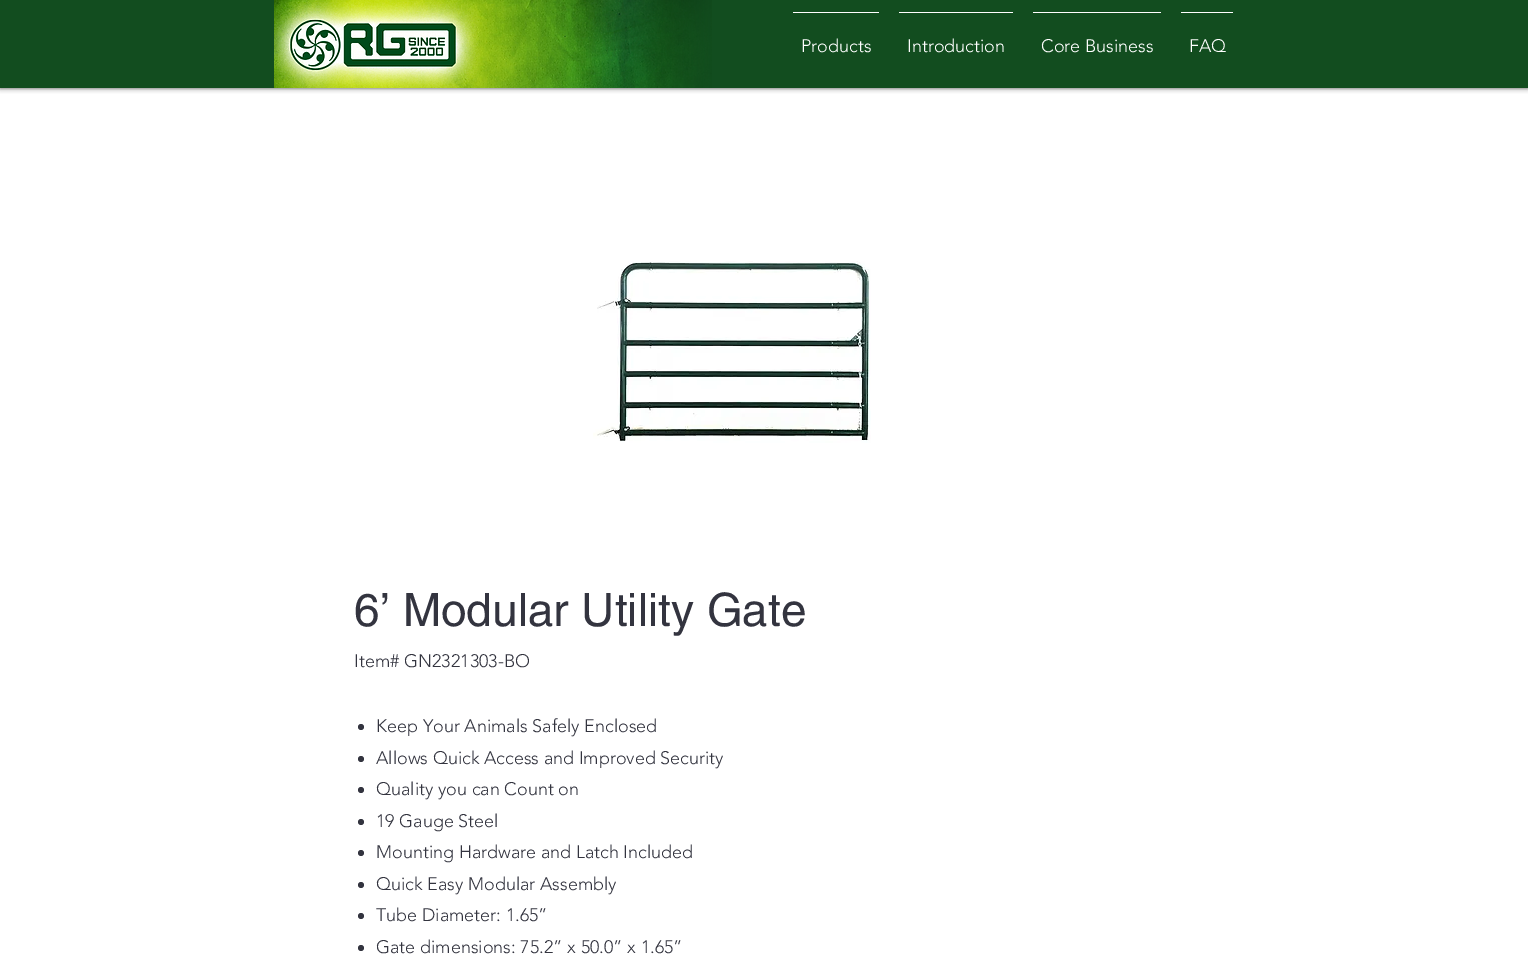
%!PS
<< /PageSize [1528 955] /PageUsesTransparency true >> setpagedevice
/fl/fill load def
/co { dup -16 bitshift 255 div exch dup -8 bitshift 255 and 255 div exch 255 and 255 div setrgbcolor } def
/fn { [ exch dup neg 0 0 3 -1 roll 0 0 ] selectfont } def
/tx { co fn moveto show } def
/bx { co rectfill } def
/al { dup .setfillconstantalpha .setstrokeconstantalpha } def
/ci { newpath 0 360 arc closepath } def
/rr { 5 dict begin { /r /h /w /y /x } { exch def } forall
  x r add y moveto x w add y 2 copy h add r arct x w add y h add x 1 index r arct
  x y h add x y r arct x y 2 copy exch w add exch r arct closepath end } def
/sh { 12 dict begin { /a /b /q /h /w /y /x } { exch def } forall gsave /was 0 def
  9 -2 -9 { dup b mul 4 div /e exch def 1 sub .425 mul 2.718 exch exp 1 add a .99 .min exch div /now exch def
    1 1 now sub 1 was sub div sub al /was now def
    w h .min e 2 mul add 0 gt { x e sub y e sub w e 2 mul add h e 2 mul add
      q e add b .6 mul add w h .min 2 div e add .min 0 .max rr fill } if } for grestore end } def
/im { 5 dict begin { /h /w /y /x /name } { exch def } forall
  gsave x y translate w h scale
  w h 8 [w 0 0 h 0 0] name (r) file false 3 colorimage grestore end } def
0 .pushpdf14devicefilter
0 955 translate 1 -1 scale
4 setmiterlimit
0 0 1528 955 16#FFFFFF bx
16#000000 co
0 0 1528 88 0 2.5 .7 sh
0 0 1528 88 16#124D1F bx
(media/1.raw) 274 0 438 88 im
793 12 86 1 16#FFFFFF bx
899 12 114 1 16#FFFFFF bx
1033 12 128 1 16#FFFFFF bx
1181 12 52 1 16#FFFFFF bx
(media/2.raw) 593 261 278 182 im
16#33343F co
361 727 3 ci fl
361 759 3 ci fl
361 790 3 ci fl
361 822 3 ci fl
361 853 3 ci fl
361 885 3 ci fl
361 916 3 ci fl
361 948 3 ci fl
(Products) 801 52 /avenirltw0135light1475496-Light 18 16#FFFFFF tx
(Introduction) 907 52 /avenirltw0135light1475496-Light 18 16#FFFFFF tx
(Core Business) 1041 52 /avenirltw0135light1475496-Light 18 16#FFFFFF tx
(FAQ) 1189 52 /avenirltw0135light1475496-Light 18 16#FFFFFF tx
(6’ Modular Utility Gate) 354 626 /helvetica-Regular 46 16#33343F tx
(Item# GN2321303-BO) 354 667 /avenirltw0135light1475496-Light 18 16#33343F tx
(Keep Your Animals Safely Enclosed) 376 732 /avenirltw0135light1475496-Light 18 16#33343F tx
(Allows Quick Access and Improved Security) 376 764 /avenirltw0135light1475496-Light 18 16#33343F tx
(Quality you can Count on) 376 795 /avenirltw0135light1475496-Light 18 16#33343F tx
(19 Gauge Steel) 376 827 /avenirltw0135light1475496-Light 18 16#33343F tx
(Mounting Hardware and Latch Included) 376 858 /avenirltw0135light1475496-Light 18 16#33343F tx
(Quick Easy Modular Assembly) 376 890 /avenirltw0135light1475496-Light 18 16#33343F tx
(Tube Diameter: 1.65”) 376 921 /avenirltw0135light1475496-Light 18 16#33343F tx
(Gate dimensions: 75.2” x 50.0” x 1.65”) 376 953 /avenirltw0135light1475496-Light 18 16#33343F tx
.poppdf14devicefilter showpage
